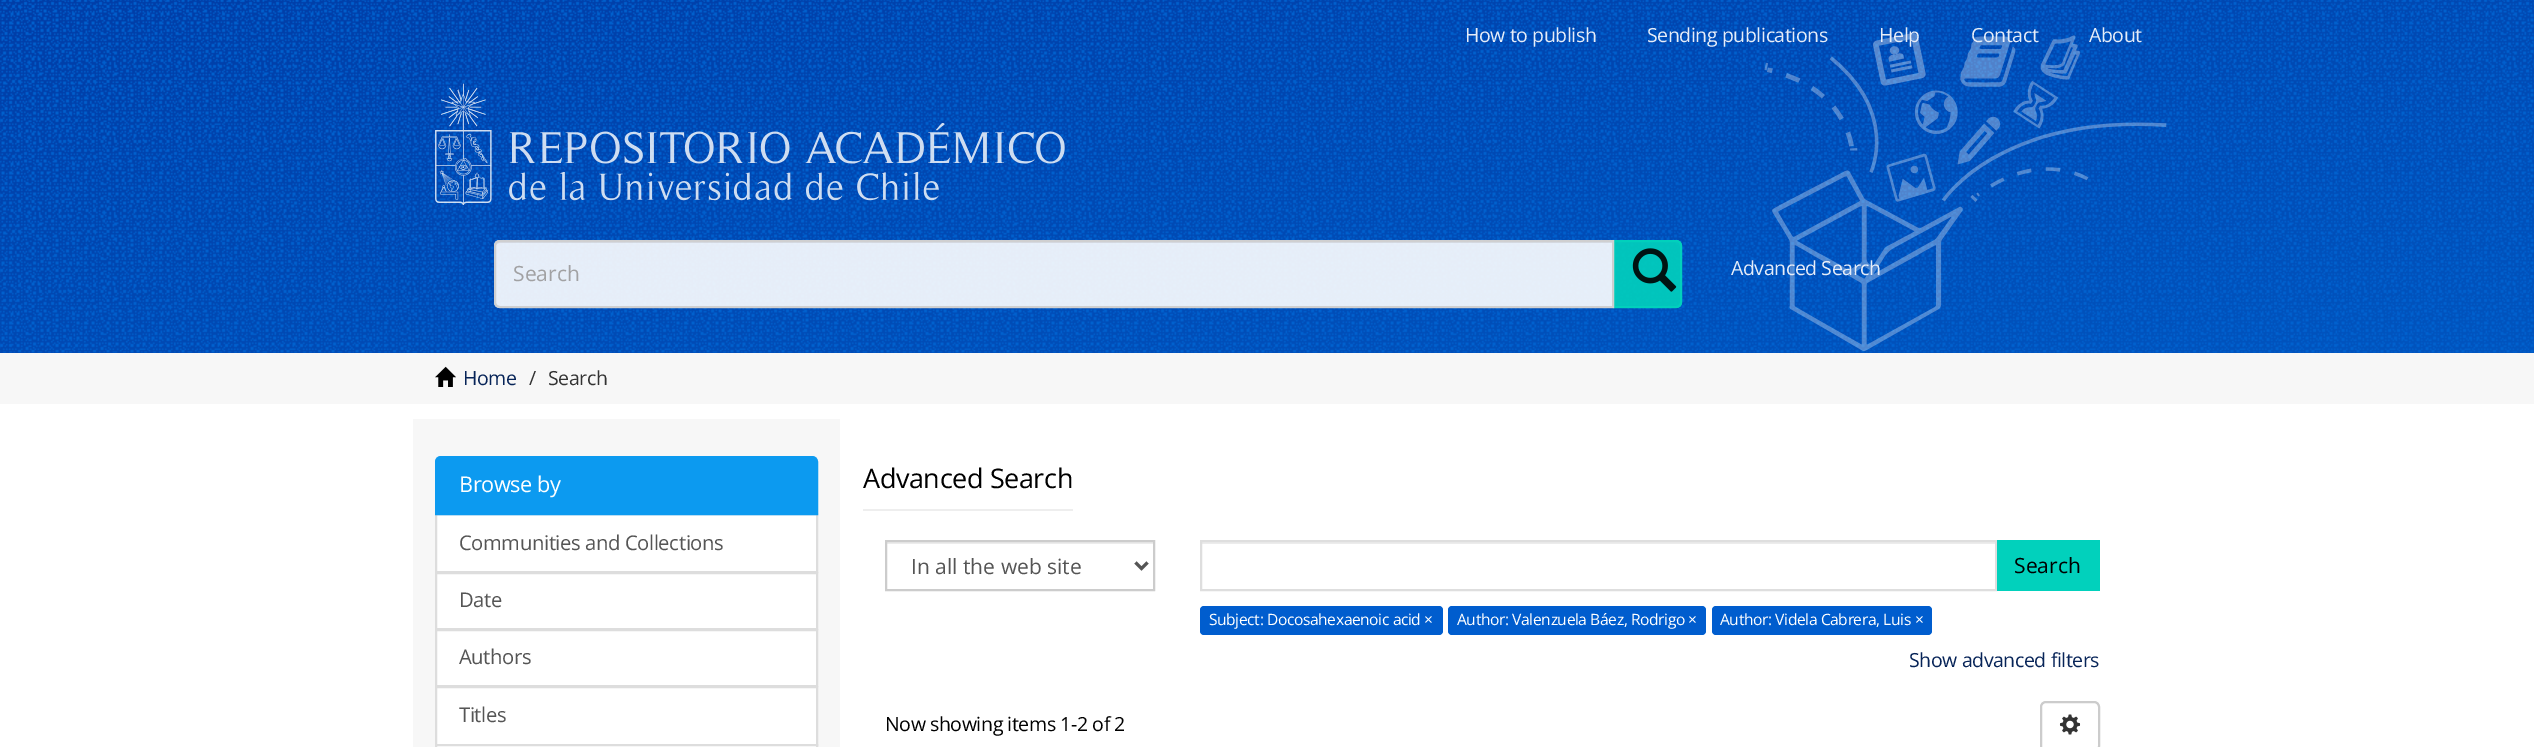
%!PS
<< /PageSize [2534 747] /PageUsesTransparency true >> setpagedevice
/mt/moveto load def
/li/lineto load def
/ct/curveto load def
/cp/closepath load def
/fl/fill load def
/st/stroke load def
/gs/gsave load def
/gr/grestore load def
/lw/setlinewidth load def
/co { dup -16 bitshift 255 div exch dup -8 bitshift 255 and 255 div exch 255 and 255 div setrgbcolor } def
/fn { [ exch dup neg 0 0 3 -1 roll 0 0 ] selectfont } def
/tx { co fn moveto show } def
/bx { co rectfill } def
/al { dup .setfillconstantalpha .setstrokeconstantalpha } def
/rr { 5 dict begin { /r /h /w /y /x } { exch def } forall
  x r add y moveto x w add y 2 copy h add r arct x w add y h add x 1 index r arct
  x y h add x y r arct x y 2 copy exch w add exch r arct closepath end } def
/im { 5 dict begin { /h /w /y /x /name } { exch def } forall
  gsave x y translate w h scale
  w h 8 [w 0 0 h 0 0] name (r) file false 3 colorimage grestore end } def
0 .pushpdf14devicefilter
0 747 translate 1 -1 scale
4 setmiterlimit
0 0 2534 747 16#FFFFFF bx
gs 0 0 mt 2534 0 li 2534 353 li 0 353 li cp clip newpath
<< /ShadingType 2 /ColorSpace /DeviceRGB /Coords [1220 -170 1315 522] /Extend [true true] /Function << /FunctionType 2 /Domain [0 1] /C0 [0 .239 .655] /C1 [0 .329 .745] /N 1 >> >> shfill gr
(media/1.raw) 0 0 2534 353 im
(media/2.raw) 1764 33 403 318 im
(media/3.raw) 435 83 630 122 im
0.9 al
16#01D1BC co
1613 240 mt 1676 240 li 1679.5 240 1682 242.5 1682 246 ct 1682 302 li 1682 305.5 1679.5 308 1676 308 ct 1613 308 li cp fl
2 lw
1614 241 mt 1676 241 li 1679 241 1681 243 1681 246 ct 1681 302 li 1681 305 1679 307 1676 307 ct 1614 307 li cp st
16#FFFFFF co
500 240 mt 1614 240 li 1614 308 li 500 308 li 496.5 308 494 305.5 494 302 ct 494 246 li 494 242.5 496.5 240 500 240 ct cp fl
0.07 al
16#000000 co
500 243 mt 1612 243 li 1612 306 li 1613 306 li 1613 242 li 500 242 li 497 242 495 245 495 248 ct 495 245 497 243 500 243 ct cp fl
0.9 al
16#CCCCCC co
500 241 mt 1613 241 li 1613 307 li 500 307 li 497 307 495 305 495 302 ct 495 246 li 495 243 497 241 500 241 ct cp st
1 al
(media/4.raw) 1632 248 45 44 im
0 353 2534 51 16#F7F7F7 bx
(media/5.raw) 435 366 21 21 im
413 419 427 328 16#F7F7F7 bx
16#FFFFFF co
436 514 mt 817 514 li 817 572 li 436 572 li cp gs fl gr
16#DDDDDD co
st
16#0C9AF0 co
441 457 mt 812 457 li 815 457 817 459 817 462 ct 817 514 li 436 514 li 436 462 li 436 459 438 457 441 457 ct cp gs fl gr
st
16#FFFFFF co
436 573 mt 817 573 li 817 629 li 436 629 li cp gs fl gr
16#DDDDDD co
st
16#FFFFFF co
436 630 mt 817 630 li 817 686 li 436 686 li cp gs fl gr
16#DDDDDD co
st
16#FFFFFF co
436 687 mt 817 687 li 817 745 li 436 745 li cp gs fl gr
16#DDDDDD co
st
16#FFFFFF co
436 745 mt 817 745 li 817 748 li 436 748 li cp gs fl gr
16#DDDDDD co
st
863 509 210 2 16#EEEEEE bx
887 542 267 2 16#ECECEC bx
16#CCCCCC co
886 541 268 49 rectstroke
16#555555 co
3 lw
1135.5 562.5 mt 1141.5 568.5 li 1147.5 562.5 li st
1202 542 793 2 16#ECECEC bx
16#DEDEDE co
2 lw
1201 541 795 49 rectstroke
1997 540 103 51 16#01D1BC bx
16#005DCE co
1200 606 243 29 4 rr fl
1448 606 258 29 4 rr fl
1712 606 220 29 4 rr fl
16#CCCCCC co
2041 702 58 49 5 rr st
(media/6.raw) 2059 714 22 21 im
/OpenSans-Regular 19.5 fn
16#E6EDF8 co
1465 42 mt -.4 0 (How to publish) ashow
1647 42 mt -.4 0 (Sending publications) ashow
1879 42 mt -.4 0 (Help) ashow
1971 42 mt -.4 0 (Contact) ashow
2089 42 mt -.4 0 (About) ashow
(Search) 513 281 /OpenSans-Regular 21 16#A1A1A3 tx
/OpenSans-Regular 19.5 fn
16#E6EDF8 co
1731 275 mt -.4 0 (Advanced Search) ashow
16#072458 co
463 385 mt -.4 0 (Home) ashow
16#333333 co
529 385 mt -.4 0 (/) ashow
548 385 mt -.4 0 (Search) ashow
/OpenSans-Regular 21.75 fn
16#FFFFFF co
459 492 mt -.4 0 (Browse by) ashow
/OpenSans-Regular 20.25 fn
16#555555 co
459 550 mt -.4 0 (Communities and Collections) ashow
459 607 mt -.4 0 (Date) ashow
459 664 mt -.4 0 (Authors) ashow
459 722 mt -.4 0 (Titles) ashow
/OpenSans-Regular 27 fn
16#000000 co
863 488 mt -.4 0 (Advanced Search) ashow
(In all the web site) 911 574 /OpenSans-Regular 21 16#555555 tx
(Search) 2014 573 /OpenSans-Regular 21 16#000000 tx
/OpenSans-Regular 15.6 fn
16#FFFFFF co
1209 625 mt -.4 0 (Subject: Docosahexaenoic acid ×) ashow
1457 625 mt -.4 0 (Author: Valenzuela Báez, Rodrigo ×) ashow
1720 625 mt -.4 0 (Author: Videla Cabrera, Luis ×) ashow
/OpenSans-Regular 19.5 fn
16#072458 co
1909 667 mt -.4 0 (Show advanced filters) ashow
16#000000 co
885 731 mt -.4 0 (Now showing items 1-2 of 2) ashow
.poppdf14devicefilter showpage
